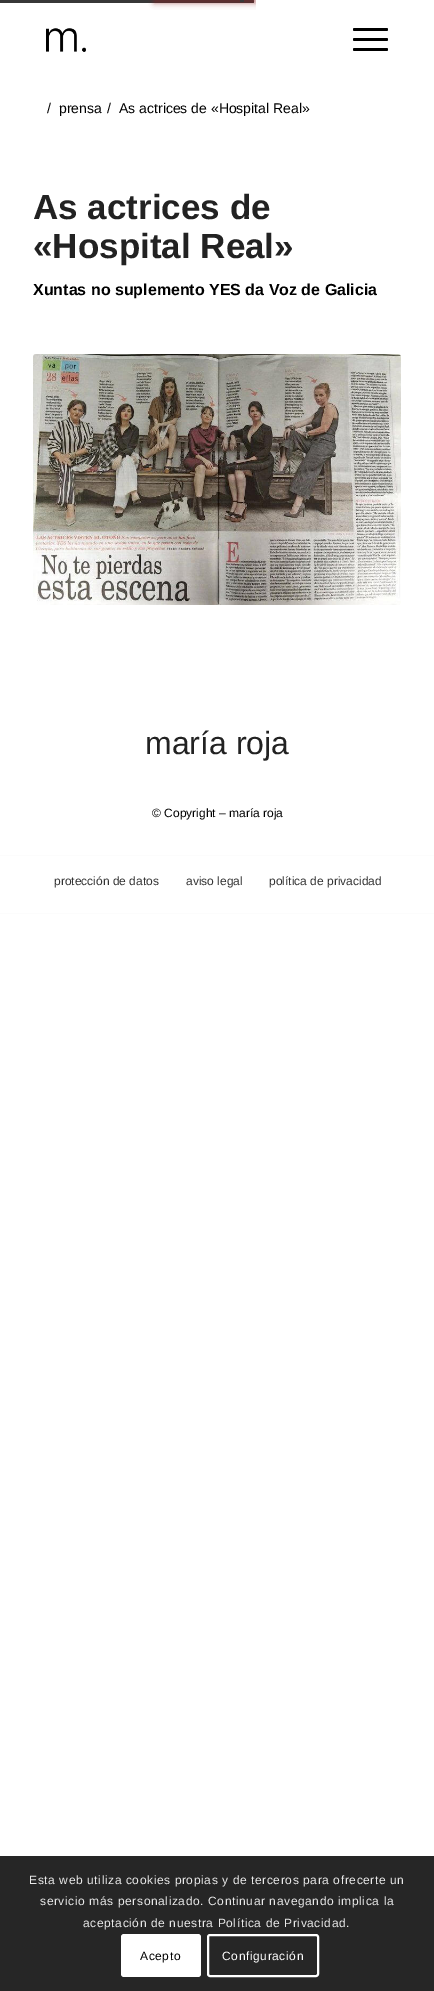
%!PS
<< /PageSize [434 1991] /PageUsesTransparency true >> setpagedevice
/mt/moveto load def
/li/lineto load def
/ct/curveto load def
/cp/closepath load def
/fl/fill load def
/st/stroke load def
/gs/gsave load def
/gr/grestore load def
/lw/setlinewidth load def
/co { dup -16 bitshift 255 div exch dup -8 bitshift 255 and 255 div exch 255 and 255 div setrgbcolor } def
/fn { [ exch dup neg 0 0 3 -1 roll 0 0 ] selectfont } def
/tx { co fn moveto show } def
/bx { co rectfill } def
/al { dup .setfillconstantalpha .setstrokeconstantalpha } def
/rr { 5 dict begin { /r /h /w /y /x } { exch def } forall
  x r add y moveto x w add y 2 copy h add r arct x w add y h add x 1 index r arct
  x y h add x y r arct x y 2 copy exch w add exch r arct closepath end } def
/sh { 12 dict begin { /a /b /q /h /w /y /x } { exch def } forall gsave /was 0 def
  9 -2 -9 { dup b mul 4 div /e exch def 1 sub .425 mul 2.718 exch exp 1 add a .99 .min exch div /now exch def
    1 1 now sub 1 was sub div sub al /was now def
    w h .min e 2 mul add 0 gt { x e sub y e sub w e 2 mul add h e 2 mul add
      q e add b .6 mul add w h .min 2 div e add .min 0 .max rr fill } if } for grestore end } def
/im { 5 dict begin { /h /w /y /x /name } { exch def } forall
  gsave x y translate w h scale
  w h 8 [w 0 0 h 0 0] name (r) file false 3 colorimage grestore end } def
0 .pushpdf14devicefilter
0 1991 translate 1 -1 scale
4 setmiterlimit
0 0 434 1991 16#FFFFFF bx
16#383838 co
-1 0 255 3 1 rr fl
gs
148 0 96 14 rectclip
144 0 mt 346 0 li 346 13 li 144 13 li cp 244 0 mt 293.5 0 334 .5 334 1 ct 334 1.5 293.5 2 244 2 ct 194.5 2 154 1.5 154 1 ct 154 .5 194.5 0 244 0 ct cp eoclip newpath
16#8A1C1F co
154 -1 182 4 2 3 .6 sh
gr
gs
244 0 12 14 rectclip
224 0 mt 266 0 li 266 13 li 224 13 li cp 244 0 mt 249.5 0 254 .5 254 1 ct 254 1.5 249.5 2 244 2 ct 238.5 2 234 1.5 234 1 ct 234 .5 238.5 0 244 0 ct cp eoclip newpath
16#8A1C1F co
234 -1 22 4 2 3 .6 sh
gr
(media/1.raw) 46 28 40 24 im
16#000000 co
353 38 35 3 1.5 rr fl
353 28 35 3 1.5 rr fl
353 48 35 3 1.5 rr fl
(media/2.raw) 33 354 368 251 im
0 855 434 1 16#FCFCFC bx
0 913 434 1 16#FCFCFC bx
0 1856 434 135 16#262626 bx
16#FFFFFF co
121 1934 80 43 3 rr fl
2 lw
208 1935 110 41 2 rr st
(/) 47 113 /LiberationSans-Regular 14 16#000000 tx
(prensa) 59 113 /LiberationSans-Regular 14 16#000000 tx
(/) 107 113 /LiberationSans-Regular 14 16#000000 tx
(As actrices de «Hospital Real») 119 113 /LiberationSans-Regular 14 16#000000 tx
(As actrices de) 33 219 /LiberationSans-Bold 35 16#222222 tx
(«Hospital Real») 33 258 /LiberationSans-Bold 35 16#222222 tx
(Xuntas no suplemento YES da Voz de Galicia) 33 295 /LiberationSans-Bold 16 16#000000 tx
(maría roja) 145 754 /LiberationSans-Regular 32 16#222222 tx
(© Copyright – maría roja) 152 817 /LiberationSans-Regular 12 16#000000 tx
(protección de datos) 54 885 /LiberationSans-Regular 12 16#333333 tx
(aviso legal) 186 885 /LiberationSans-Regular 12 16#333333 tx
(política de privacidad) 269 885 /LiberationSans-Regular 12 16#333333 tx
16#E9E9E9 co
29 1884 mt .6 0 (Esta web utiliza cookies propias y de terceros para ofrecerte un) ashow
40 1905 mt .6 0 (servicio más personalizado. Continuar navegando implica la) ashow
83 1927 mt .6 0 (aceptación de nuestra Política de Privacidad.) ashow
16#000000 co
140 1960 mt .6 0 (Acepto) ashow
16#FFFFFF co
222 1960 mt .6 0 (Configuración) ashow
.poppdf14devicefilter showpage
